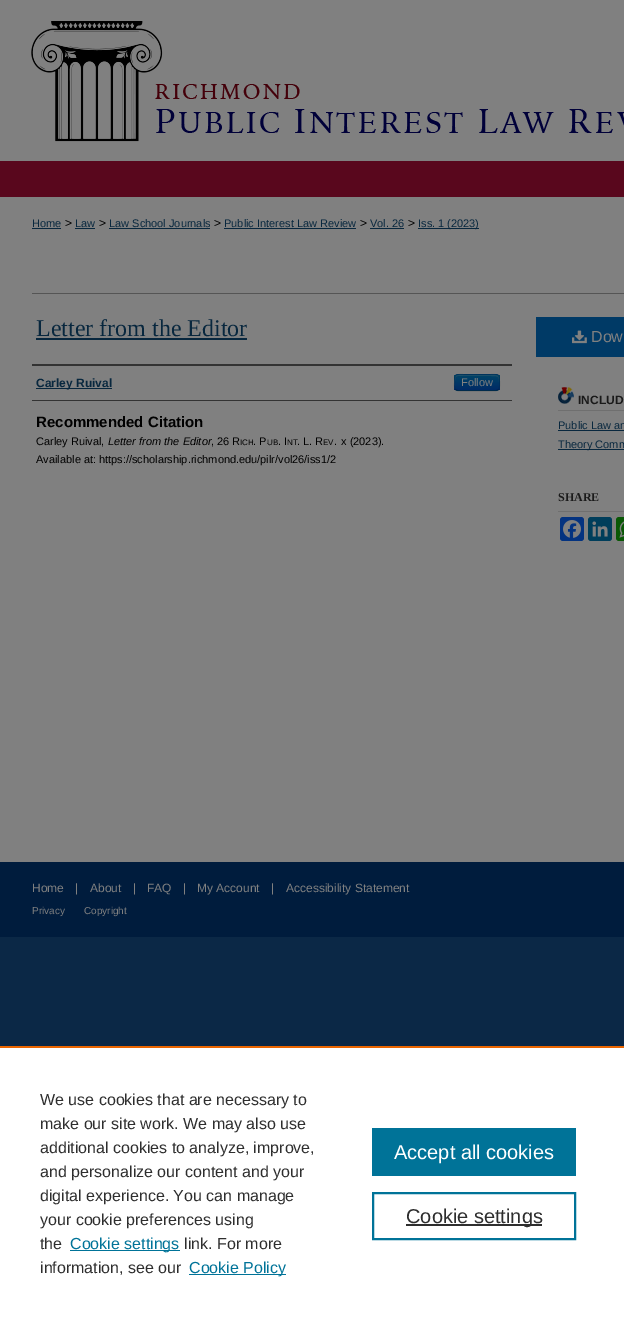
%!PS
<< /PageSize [624 1320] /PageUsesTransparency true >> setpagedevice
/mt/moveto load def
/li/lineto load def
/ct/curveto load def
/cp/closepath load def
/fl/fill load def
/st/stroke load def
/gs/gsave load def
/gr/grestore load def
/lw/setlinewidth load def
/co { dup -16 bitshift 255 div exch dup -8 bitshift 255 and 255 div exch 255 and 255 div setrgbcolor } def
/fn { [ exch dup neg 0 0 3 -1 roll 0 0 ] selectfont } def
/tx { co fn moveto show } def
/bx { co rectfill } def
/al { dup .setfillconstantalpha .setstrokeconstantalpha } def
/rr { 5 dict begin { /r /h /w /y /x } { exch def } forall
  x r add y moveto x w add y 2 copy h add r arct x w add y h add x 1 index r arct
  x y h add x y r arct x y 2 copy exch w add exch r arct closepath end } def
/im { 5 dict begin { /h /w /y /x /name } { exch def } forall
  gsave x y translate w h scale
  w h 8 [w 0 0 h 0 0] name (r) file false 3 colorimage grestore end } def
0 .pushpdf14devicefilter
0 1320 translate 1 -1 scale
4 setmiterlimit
0 0 624 1320 16#0B2846 bx
0 0 624 161 16#808080 bx
(media/1.raw) 31 21 593 121 im
0 161 624 36 16#59071D bx
0 197 624 665 16#808080 bx
32 228 29 1 16#08273E bx
75 228 20 1 16#08273E bx
109 228 101 1 16#08273E bx
224 228 132 1 16#08273E bx
370 228 34 1 16#08273E bx
418 228 61 1 16#08273E bx
32 293 592 1 16#555555 bx
36 338 211 2 16#08273E bx
32 364 480 2 16#333333 bx
32 400 480 1 16#333333 bx
36 388 76 1 16#08273E bx
16#003A66 co
454 374 46 17 4 rr fl
gs
454 374 46 17 4 rr clip newpath
gs 454 375 mt 500 375 li 500 390 li 454 390 li cp clip newpath
<< /ShadingType 2 /ColorSpace /DeviceRGB /Coords [477 375 477 390] /Extend [true true] /Function << /FunctionType 2 /Domain [0 1] /C0 [0 .267 .4] /C1 [0 .169 .4] /N 1 >> >> shfill gr
gr
0.2 al
16#808080 co
458 376 mt 491 376 li 498 376 499 376 499 382 ct 499 388 li 499 381 li 499 374 497 375 490 375 ct 464 375 li 457 375 455 374 455 381 ct 455 389 li 455 386 453 376 458 376 ct cp fl
0.25 al
16#000000 co
498.5 389.5 mt 498 390 497 390.5 496 390.5 ct 458 390.5 li 457 390.5 456 390 455.5 389.5 ct st
0.1 al
455.5 389.5 mt 454 387.5 454.5 384.5 454.5 382.5 ct 454.5 373.5 455 374.5 464.5 374.5 ct 489.5 374.5 li 499 374.5 499.5 373.5 499.5 382.5 ct 499.5 384.5 500 387.5 498.5 389.5 ct st
1 al
536 317 88 40 16#003A66 bx
(media/2.raw) 572 330 15 14 im
(media/3.raw) 558 387 16 17 im
558 410 66 1 16#6F6F6F bx
558 430 66 1 16#08273E bx
558 449 66 1 16#08273E bx
558 511 66 1 16#6F6F6F bx
16#043380 co
560 517 24 24 3 rr fl
(media/4.raw) 563 520 18 18 im
16#003E5B co
588 517 24 24 3 rr fl
(media/5.raw) 592 521 16 16 im
16#095805 co
616 517 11 24 3 rr fl
(media/6.raw) 619 521 5 17 im
0 862 624 75 16#001C3D bx
0 1048 624 272 16#FFFFFF bx
0 1046 624 2 16#EB6500 bx
70 1250 110 1 16#007398 bx
189 1274 97 1 16#007398 bx
372 1128 204 48 16#007398 bx
2 lw
373 1193 202 46 rectstroke
406 1224 136 2 16#2E2E2E bx
(Home) 32 227 /LiberationSans-Regular 11 16#08273E tx
(>) 65 227 /LiberationSans-Regular 12 16#000000 tx
(Law) 75 227 /LiberationSans-Regular 11 16#08273E tx
(>) 99 227 /LiberationSans-Regular 12 16#000000 tx
(Law School Journals) 109 227 /LiberationSans-Regular 11 16#08273E tx
(>) 214 227 /LiberationSans-Regular 12 16#000000 tx
(Public Interest Law Review) 224 227 /LiberationSans-Regular 11 16#08273E tx
(>) 360 227 /LiberationSans-Regular 12 16#000000 tx
(Vol. 26) 370 227 /LiberationSans-Regular 11 16#08273E tx
(>) 408 227 /LiberationSans-Regular 12 16#000000 tx
(Iss. 1 \(2023\)) 418 227 /LiberationSans-Regular 11 16#08273E tx
(Letter from the Editor) 36 336 /LiberationSerif-Regular 24 16#08273E tx
(Carley Ruival) 36 387 /LiberationSans-Bold 12 16#08273E tx
(Follow) 461 386 /LiberationSans-Regular 11 16#808080 tx
(Recommended Citation) 36 427 /LiberationSans-Bold 15 16#000000 tx
(Carley Ruival,) 36 445 /LiberationSans-Regular 11 16#000000 tx
(Letter from the Editor) 108 445 /LiberationSans-Italic 11 16#000000 tx
(, 26 R) 211 445 /LiberationSans-Regular 11 16#000000 tx
(ICH) 240 445 /LiberationSans-Regular 8 16#000000 tx
(. P) 253 445 /LiberationSans-Regular 11 16#000000 tx
(UB) 267 445 /LiberationSans-Regular 8 16#000000 tx
(. I) 278 445 /LiberationSans-Regular 11 16#000000 tx
(NT) 287 445 /LiberationSans-Regular 8 16#000000 tx
(. L. R) 297 445 /LiberationSans-Regular 11 16#000000 tx
(EV) 323 445 /LiberationSans-Regular 8 16#000000 tx
(.) 334 445 /LiberationSans-Regular 11 16#000000 tx
(x \(2023\).) 341 445 /LiberationSans-Regular 11 16#000000 tx
(Available at: https://scholarship.richmond.edu/pilr/vol26/iss1/2) 36 463 /LiberationSans-Regular 11 16#000000 tx
(Dow) 591 342 /LiberationSans-Regular 16 16#808080 tx
(INCLUD) 578 404 /LiberationSans-Bold 12 16#1A1A1A tx
(Public Law an) 558 429 /LiberationSans-Regular 11 16#08273E tx
(Theory Comm) 558 448 /LiberationSans-Regular 11 16#08273E tx
(SHARE) 558 501 /LiberationSerif-Bold 12 16#1A1A1A tx
(Home) 32 892 /LiberationSans-Regular 12 16#808080 tx
(|) 75 892 /LiberationSans-Regular 12 16#808080 tx
(About) 90 892 /LiberationSans-Regular 12 16#808080 tx
(|) 133 892 /LiberationSans-Regular 12 16#808080 tx
(FAQ) 147 892 /LiberationSans-Regular 12 16#808080 tx
(|) 183 892 /LiberationSans-Regular 12 16#808080 tx
(My Account) 197 892 /LiberationSans-Regular 12 16#808080 tx
(|) 271 892 /LiberationSans-Regular 12 16#808080 tx
(Accessibility Statement) 286 892 /LiberationSans-Regular 12 16#808080 tx
(Privacy) 32 914 /LiberationSans-Regular 10 16#808080 tx
(Copyright) 84 914 /LiberationSans-Regular 10 16#808080 tx
(We use cookies that are necessary to) 40 1105 /LiberationSans-Regular 16 16#2E2E2E tx
(make our site work. We may also use) 40 1129 /LiberationSans-Regular 16 16#2E2E2E tx
(additional cookies to analyze, improve,) 40 1153 /LiberationSans-Regular 16 16#2E2E2E tx
(and personalize our content and your) 40 1177 /LiberationSans-Regular 16 16#2E2E2E tx
(digital experience. You can manage) 40 1201 /LiberationSans-Regular 16 16#2E2E2E tx
(your cookie preferences using) 40 1225 /LiberationSans-Regular 16 16#2E2E2E tx
(the) 40 1249 /LiberationSans-Regular 16 16#2E2E2E tx
(Cookie settings) 70 1249 /LiberationSans-Regular 16 16#007398 tx
(link. For more) 184 1249 /LiberationSans-Regular 16 16#2E2E2E tx
(information, see our) 40 1273 /LiberationSans-Regular 16 16#2E2E2E tx
(Cookie Policy) 189 1273 /LiberationSans-Regular 16 16#007398 tx
(Accept all cookies) 394 1159 /LiberationSans-Regular 20 16#FFFFFF tx
(Cookie settings) 406 1223 /LiberationSans-Regular 20 16#2E2E2E tx
.poppdf14devicefilter showpage
